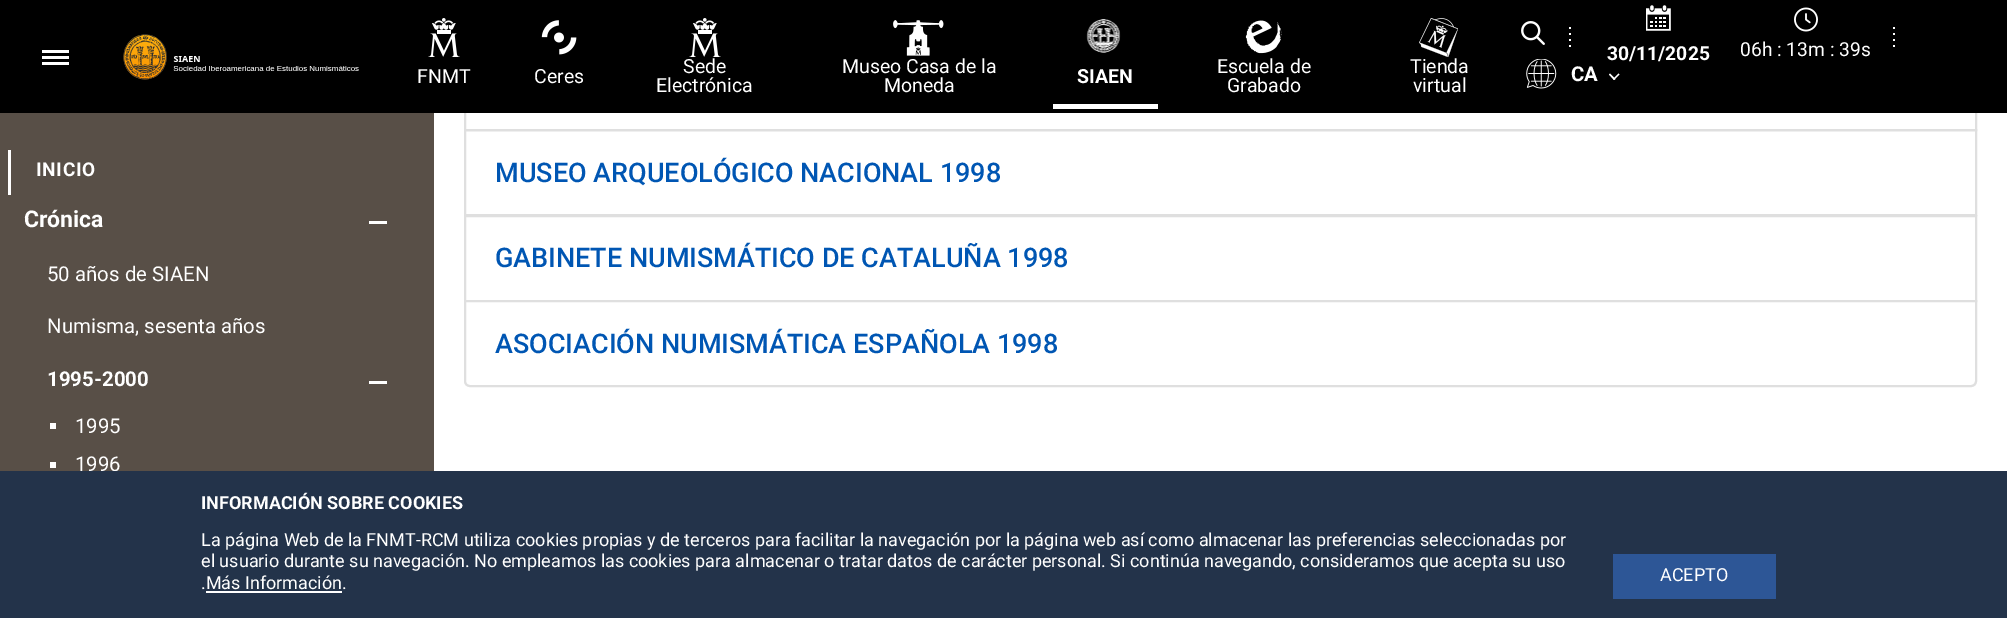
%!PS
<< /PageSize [2007 618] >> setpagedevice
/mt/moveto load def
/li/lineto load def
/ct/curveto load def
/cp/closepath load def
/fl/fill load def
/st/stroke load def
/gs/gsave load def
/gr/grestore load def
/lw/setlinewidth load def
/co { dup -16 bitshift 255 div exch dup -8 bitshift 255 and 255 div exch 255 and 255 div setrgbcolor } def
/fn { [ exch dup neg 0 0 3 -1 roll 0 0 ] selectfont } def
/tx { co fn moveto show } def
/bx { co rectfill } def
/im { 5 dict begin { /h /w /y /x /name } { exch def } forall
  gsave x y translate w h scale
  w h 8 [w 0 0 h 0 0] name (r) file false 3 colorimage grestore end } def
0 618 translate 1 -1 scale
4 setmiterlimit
0 0 2007 618 16#FFFFFF bx
0 113 434 358 16#584F47 bx
16#DFDFDF co
2 lw
465 45 1511 85 rectstroke
0 0 2007 113 16#000000 bx
42 50 27 3 16#FFFFFF bx
42 56 27 3 16#FFFFFF bx
42 62 27 3 16#FFFFFF bx
(media/1.raw) 123 34 236 46 im
(media/2.raw) 428 18 32 39 im
(media/3.raw) 541 20 36 35 im
(media/2.raw) 689 18 32 39 im
(media/4.raw) 893 20 51 36 im
(media/5.raw) 1086 19 35 34 im
1053 104 105 5 16#FFFFFF bx
(media/6.raw) 1245 20 37 34 im
(media/7.raw) 1419 18 39 39 im
(media/8.raw) 1521 21 24 24 im
1569 27 2 2 16#FFFFFF bx
1569 33 2 2 16#FFFFFF bx
1569 39 2 2 16#FFFFFF bx
1569 45 2 2 16#FFFFFF bx
1893 27 2 2 16#FFFFFF bx
1893 33 2 2 16#FFFFFF bx
1893 39 2 2 16#FFFFFF bx
1893 45 2 2 16#FFFFFF bx
(media/9.raw) 1646 5 25 26 im
(media/10.raw) 1794 7 24 25 im
(media/11.raw) 1526 59 31 30 im
1618.5 73.5 mt 1619.5 74.5 li 1614 80 li 1613 79 li cp fl
1610 73.5 mt 1615.5 79 li 1614 80 li 1609 74.5 li cp fl
8 150 3 45 16#FFFFFF bx
369 221 18 3 16#FFFFFF bx
369 381 18 3 16#FFFFFF bx
50 423 6 6 16#FFFFFF bx
50 462 6 6 16#FFFFFF bx
16#DFDFDF co
465 130 1511 85 rectstroke
465 216 1511 85 rectstroke
16#FFFFFF co
465 301 mt 1976 301 li 1976 381 li 1976 384 1974 386 1971 386 ct 470 386 li 467 386 465 384 465 381 ct cp gs fl gr
16#DFDFDF co
st
(FNMT) 417 83 /Roboto-Regular 19.5 16#FFFFFF tx
(Ceres) 534 83 /Roboto-Regular 19.5 16#FFFFFF tx
(Sede) 683 73 /Roboto-Regular 19.5 16#FFFFFF tx
(Electrónica) 656 92 /Roboto-Regular 19.5 16#FFFFFF tx
(Museo Casa de la) 842 73 /Roboto-Regular 19.5 16#FFFFFF tx
(Moneda) 884 92 /Roboto-Regular 19.5 16#FFFFFF tx
(SIAEN) 1077 83 /Roboto-Bold 19.5 16#FFFFFF tx
(Escuela de) 1217 73 /Roboto-Regular 19.5 16#FFFFFF tx
(Grabado) 1227 92 /Roboto-Regular 19.5 16#FFFFFF tx
(Tienda) 1410 73 /Roboto-Regular 19.5 16#FFFFFF tx
(virtual) 1413 92 /Roboto-Regular 19.5 16#FFFFFF tx
(30/11/2025) 1607 60 /Roboto-Bold 19.25 16#FFFFFF tx
(06h : 13m : 39s) 1740 56 /Roboto-Regular 19.25 16#FFFFFF tx
(CA) 1571 81 /Roboto-Bold 20.4 16#FFFFFF tx
/Roboto-Bold 19 fn
36 176 mt .75 0 (INICIO) ashow
(Crónica) 24 227 /Roboto-Bold 23 16#FFFFFF tx
(50 años de SIAEN) 47 281 /Roboto-Regular 20.4 16#FFFFFF tx
(Numisma, sesenta años) 47 333 /Roboto-Regular 20.4 16#FFFFFF tx
(1995-2000) 47 386 /Roboto-Bold 20.4 16#FFFFFF tx
(1995) 75 433 /Roboto-Regular 20.4 16#FFFFFF tx
(1996) 75 471 /Roboto-Regular 20.4 16#FFFFFF tx
(MUSEO ARQUEOLÓGICO NACIONAL 1998) 495 182 /Roboto-Medium 27 16#0056B3 tx
(GABINETE NUMISMÁTICO DE CATALUÑA 1998) 495 267 /Roboto-Medium 27 16#0056B3 tx
(ASOCIACIÓN NUMISMÁTICA ESPAÑOLA 1998) 495 353 /Roboto-Medium 27 16#0056B3 tx
0 471 2007 147 16#23334A bx
(INFORMACIÓN SOBRE COOKIES) 201 509 /Roboto-Bold 18 16#FFFFFF tx
(La página Web de la FNMT-RCM utiliza cookies propias y de terceros para facilitar la navegación por la página web así como almacenar las preferencias seleccionadas por) 201 546 /Roboto-Regular 18 16#FFFFFF tx
(el usuario durante su navegación. No empleamos las cookies para almacenar o tratar datos de carácter personal. Si continúa navegando, consideramos que acepta su uso) 201 567 /Roboto-Regular 18 16#FFFFFF tx
(.Más Información.) 201 589 /Roboto-Regular 18 16#FFFFFF tx
1613 554 163 45 16#2D5696 bx
(ACEPTO) 1660 581 /Roboto-Regular 18 16#FFFFFF tx
206 591 136 2 16#FFFFFF bx
showpage
